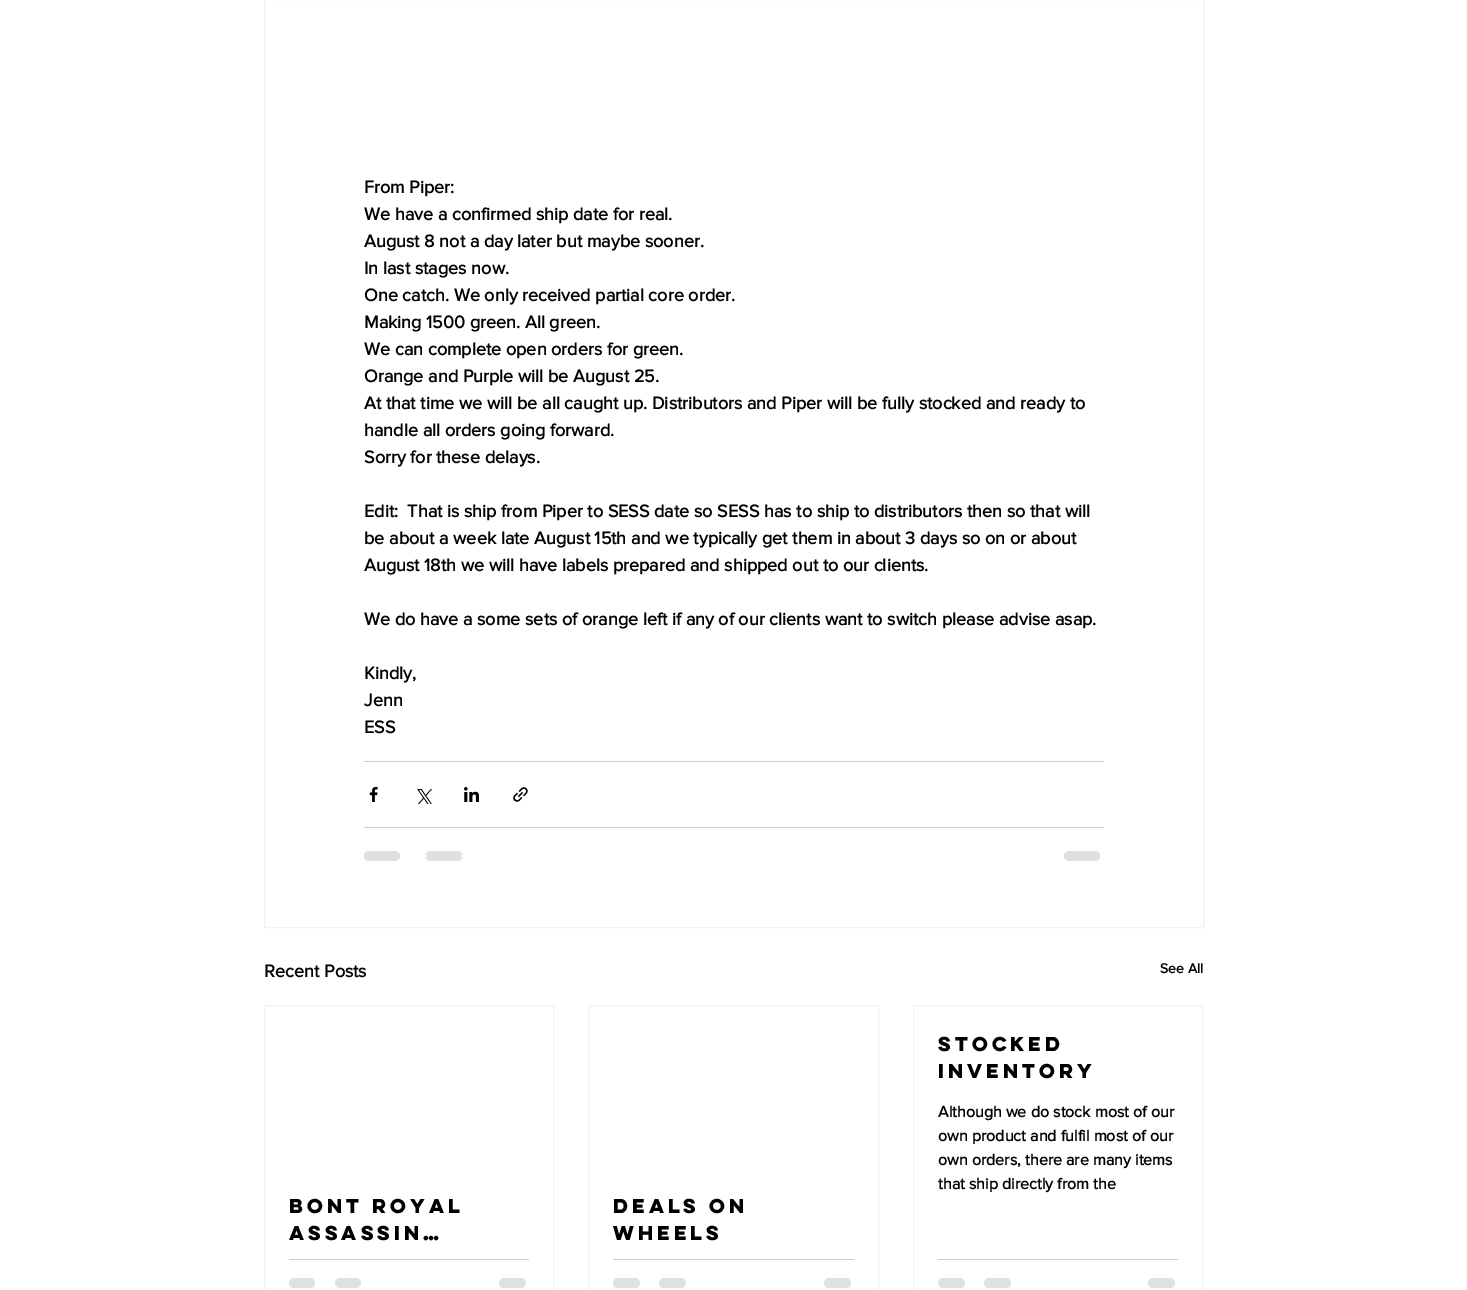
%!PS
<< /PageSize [1467 1290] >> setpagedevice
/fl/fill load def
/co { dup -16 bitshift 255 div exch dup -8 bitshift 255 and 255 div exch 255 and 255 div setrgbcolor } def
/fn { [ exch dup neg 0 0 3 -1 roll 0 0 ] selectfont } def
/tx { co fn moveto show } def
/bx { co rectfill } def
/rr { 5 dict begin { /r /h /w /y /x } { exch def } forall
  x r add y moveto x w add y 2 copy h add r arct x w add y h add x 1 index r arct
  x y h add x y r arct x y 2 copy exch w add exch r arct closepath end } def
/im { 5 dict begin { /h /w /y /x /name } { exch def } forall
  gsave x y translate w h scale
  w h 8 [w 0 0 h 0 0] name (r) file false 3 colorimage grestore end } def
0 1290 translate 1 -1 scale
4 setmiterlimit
0 0 1467 1290 16#FFFFFF bx
16#F2F2F2 co
264.5 -.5 939 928 rectstroke
364 761 740 1 16#CCCCCC bx
(media/1.raw) 369 787 9 15 im
(media/2.raw) 417 789 15 15 im
(media/3.raw) 464 787 15 15 im
(media/4.raw) 513 787 15 15 im
364 827 740 1 16#CCCCCC bx
16#E0E0E0 co
364 851 36 10 5 rr fl
426 851 36 10 5 rr fl
1064 851 36 10 5 rr fl
16#F2F2F2 co
913.5 1005.5 289 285 rectstroke
938 1259 240 1 16#CCCCCC bx
16#E0E0E0 co
938 1278 27 10 5 rr fl
984 1278 27 10 5 rr fl
1148 1278 27 10 5 rr fl
16#F2F2F2 co
264.5 1005.5 289 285 rectstroke
289 1259 240 1 16#CCCCCC bx
16#E0E0E0 co
289 1278 26 10 5 rr fl
335 1278 26 10 5 rr fl
499 1278 27 10 5 rr fl
16#F2F2F2 co
588.5 1005.5 290 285 rectstroke
613 1259 241 1 16#CCCCCC bx
16#E0E0E0 co
613 1278 27 10 5 rr fl
659 1278 27 10 5 rr fl
824 1278 27 10 5 rr fl
(From Piper:) 364 193 /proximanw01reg-Bold 18 16#000000 tx
(We have a confirmed ship date for real.) 364 220 /proximanw01reg-Bold 18 16#000000 tx
(August 8 not a day later but maybe sooner.) 364 247 /proximanw01reg-Bold 18 16#000000 tx
(In last stages now.) 364 274 /proximanw01reg-Bold 18 16#000000 tx
(One catch. We only received partial core order.) 364 301 /proximanw01reg-Bold 18 16#000000 tx
(Making 1500 green. All green.) 364 328 /proximanw01reg-Bold 18 16#000000 tx
(We can complete open orders for green.) 364 355 /proximanw01reg-Bold 18 16#000000 tx
(Orange and Purple will be August 25.) 364 382 /proximanw01reg-Bold 18 16#000000 tx
(At that time we will be all caught up. Distributors and Piper will be fully stocked and ready to) 364 409 /proximanw01reg-Bold 18 16#000000 tx
(handle all orders going forward.) 364 436 /proximanw01reg-Bold 18 16#000000 tx
(Sorry for these delays.) 364 463 /proximanw01reg-Bold 18 16#000000 tx
(Edit:  That is ship from Piper to SESS date so SESS has to ship to distributors then so that will) 364 517 /proximanw01reg-Bold 18 16#000000 tx
(be about a week late August 15th and we typically get them in about 3 days so on or about) 364 544 /proximanw01reg-Bold 18 16#000000 tx
(August 18th we will have labels prepared and shipped out to our clients.) 364 571 /proximanw01reg-Bold 18 16#000000 tx
(We do have a some sets of orange left if any of our clients want to switch please advise asap.) 364 625 /proximanw01reg-Bold 18 16#000000 tx
(Kindly,) 364 679 /proximanw01reg-Bold 18 16#000000 tx
(Jenn) 364 706 /proximanw01reg-Bold 18 16#000000 tx
(ESS) 364 733 /proximanw01reg-Bold 18 16#000000 tx
(Recent Posts) 264 977 /proximanw01reg-Bold 18 16#000000 tx
(See All) 1160 973 /proximanw01reg-Bold 14 16#000000 tx
(STOCKED) 938 1051 /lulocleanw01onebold-Bold 18 16#000000 tx
(INVENTORY) 938 1078 /lulocleanw01onebold-Bold 18 16#000000 tx
(Although we do stock most of our) 938 1117 /proximanw01reg-Bold 16 16#000000 tx
(own product and fulfil most of our) 938 1141 /proximanw01reg-Bold 16 16#000000 tx
(own orders, there are many items) 938 1165 /proximanw01reg-Bold 16 16#000000 tx
(that ship directly from the) 938 1189 /proximanw01reg-Bold 16 16#000000 tx
(BONT ROYAL) 289 1213 /lulocleanw01onebold-Bold 18 16#000000 tx
(ASSASSIN…) 289 1240 /lulocleanw01onebold-Bold 18 16#000000 tx
(DEALS ON) 613 1213 /lulocleanw01onebold-Bold 18 16#000000 tx
(WHEELS) 613 1240 /lulocleanw01onebold-Bold 18 16#000000 tx
showpage
